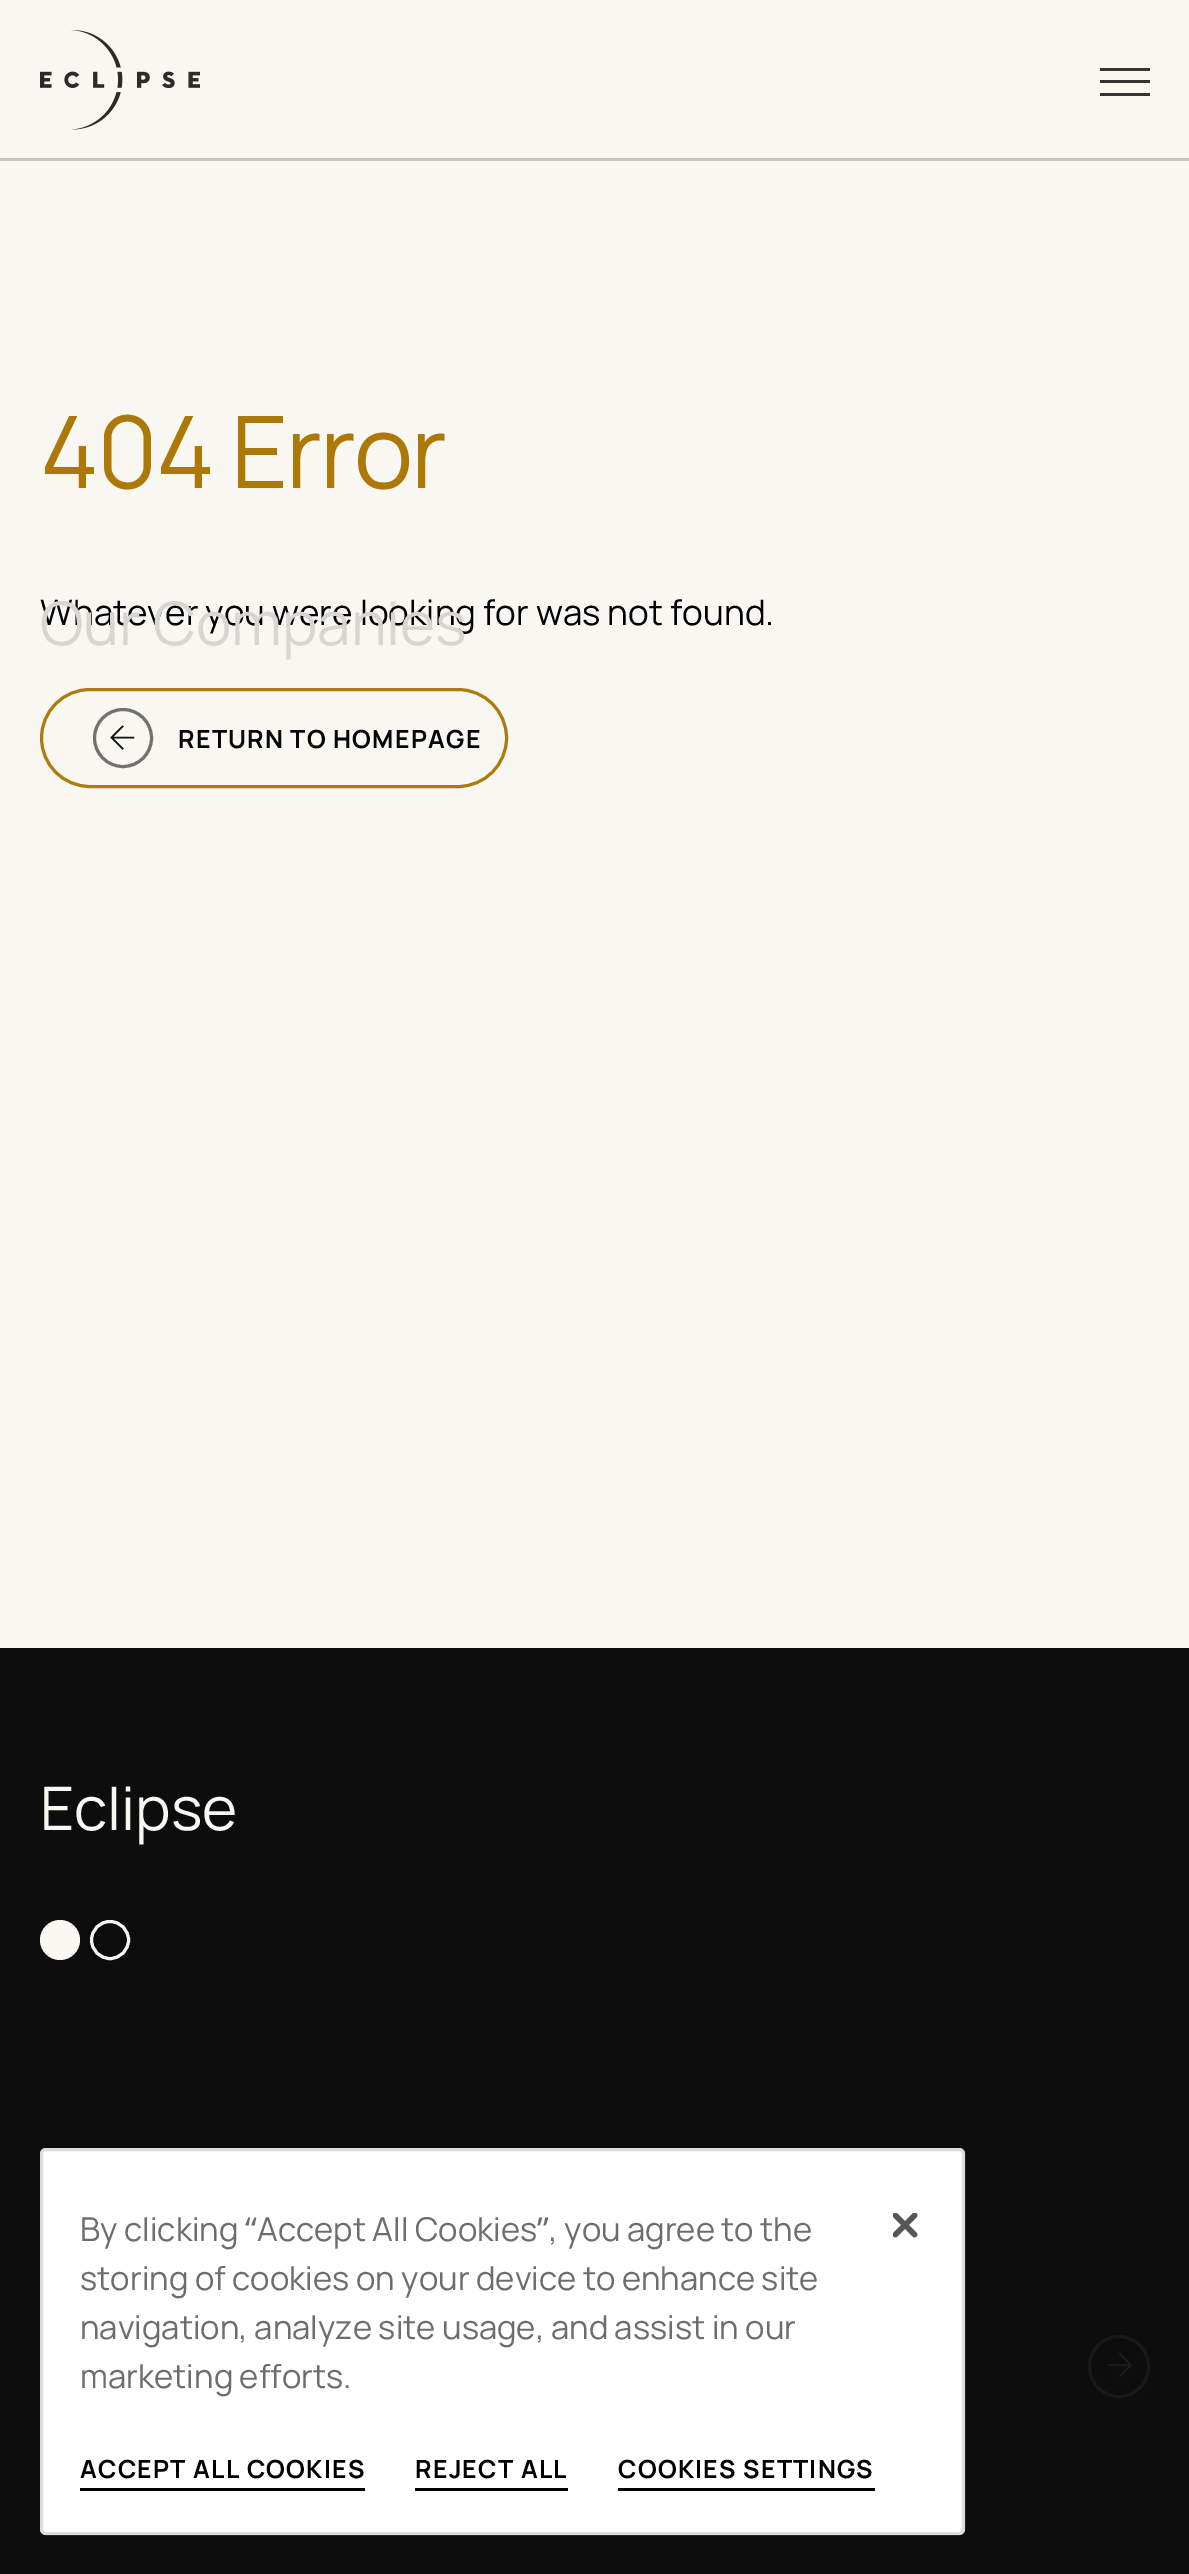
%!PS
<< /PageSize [1189 2574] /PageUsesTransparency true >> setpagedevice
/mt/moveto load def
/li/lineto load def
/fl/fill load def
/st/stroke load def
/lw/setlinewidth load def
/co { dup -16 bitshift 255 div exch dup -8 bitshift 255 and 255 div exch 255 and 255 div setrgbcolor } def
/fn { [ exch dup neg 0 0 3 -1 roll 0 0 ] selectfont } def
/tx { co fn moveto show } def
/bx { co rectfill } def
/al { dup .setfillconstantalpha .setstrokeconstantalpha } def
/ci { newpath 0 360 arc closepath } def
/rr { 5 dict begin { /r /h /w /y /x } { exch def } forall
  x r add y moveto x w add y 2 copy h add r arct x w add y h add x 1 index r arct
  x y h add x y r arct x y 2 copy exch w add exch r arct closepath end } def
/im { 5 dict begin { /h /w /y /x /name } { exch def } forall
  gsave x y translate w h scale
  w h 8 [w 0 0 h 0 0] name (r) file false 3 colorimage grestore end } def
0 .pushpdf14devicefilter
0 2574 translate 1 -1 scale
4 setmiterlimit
0 0 1189 2574 16#F8F7F2 bx
16#AE7C0E co
3 lw
41.5 689.5 465 97 48.5 rr st
16#717171 co
123 738 28.5 ci st
16#131313 co
1.5 lw
2 setlinecap
122.5 748.5 mt 111.5 737.5 li 111.5 737.5 mt 122.5 726.5 li 111.5 737.5 mt 133.5 737.5 li st
0 158 1189 3 16#C7C6C2 bx
(media/1.raw) 40 30 160 100 im
1100 68 50 3 16#363534 bx
1100 80 50 3 16#363534 bx
1100 93 50 3 16#363534 bx
0 1648 1189 926 16#0D0D0D bx
16#F8F7F2 co
60 1940 20 ci fl
3 lw
0 setlinecap
110 1940 18.5 ci st
16#191919 co
1089.5 2336.5 59 60 29.5 rr st
16#1E1D1D co
1.5 lw
2 setlinecap
1120 2354 mt 1131 2365 li 1131 2365 mt 1120 2376 li 1131 2365 mt 1109 2365 li st
16#FFFFFF co
40 2148 925 387 6 rr fl
0.5 al
16#BDBCB7 co
3 lw
0 setlinecap
41.5 2149.5 922 384 4.5 rr st
1 al
(media/2.raw) 893 2213 25 25 im
80 2488 285 3 16#000000 bx
415 2488 153 3 16#000000 bx
618 2488 257 3 16#000000 bx
/Manrope-Regular 100 fn
16#AC7908 co
40 488 mt -2 0 (404 Error) ashow
(Whatever you were looking for was not found.) 40 625 /Manrope-Regular 35 16#000000 tx
/Manrope-Bold 25 fn
16#070707 co
178 748 mt 1.25 0 (RETURN TO HOMEPAGE) ashow
(Our Companies) 40 645 /Manrope-Regular 60 16#D7D6D2 tx
(Eclipse) 40 1830 /Manrope-Regular 60 16#F8F7F2 tx
(By clicking) 80 2241 /Manrope-Regular 32.8 16#6D6D6D tx
(“) 245 2241 /NotoSans-Regular 32.8 16#6D6D6D tx
(Accept All Cookies) 257 2241 /Manrope-Regular 32.8 16#6D6D6D tx
(”) 537 2241 /NotoSans-Regular 32.8 16#6D6D6D tx
(, you agree to the) 549 2241 /Manrope-Regular 32.8 16#6D6D6D tx
(storing of cookies on your device to enhance site) 80 2290 /Manrope-Regular 32.8 16#6D6D6D tx
(navigation, analyze site usage, and assist in our) 80 2339 /Manrope-Regular 32.8 16#6D6D6D tx
(marketing efforts.) 80 2388 /Manrope-Regular 32.8 16#6D6D6D tx
/Manrope-Bold 25 fn
16#000000 co
80 2478 mt 1.25 0 (ACCEPT ALL COOKIES) ashow
415 2478 mt 1.25 0 (REJECT ALL) ashow
618 2478 mt 1.25 0 (COOKIES SETTINGS) ashow
.poppdf14devicefilter showpage
